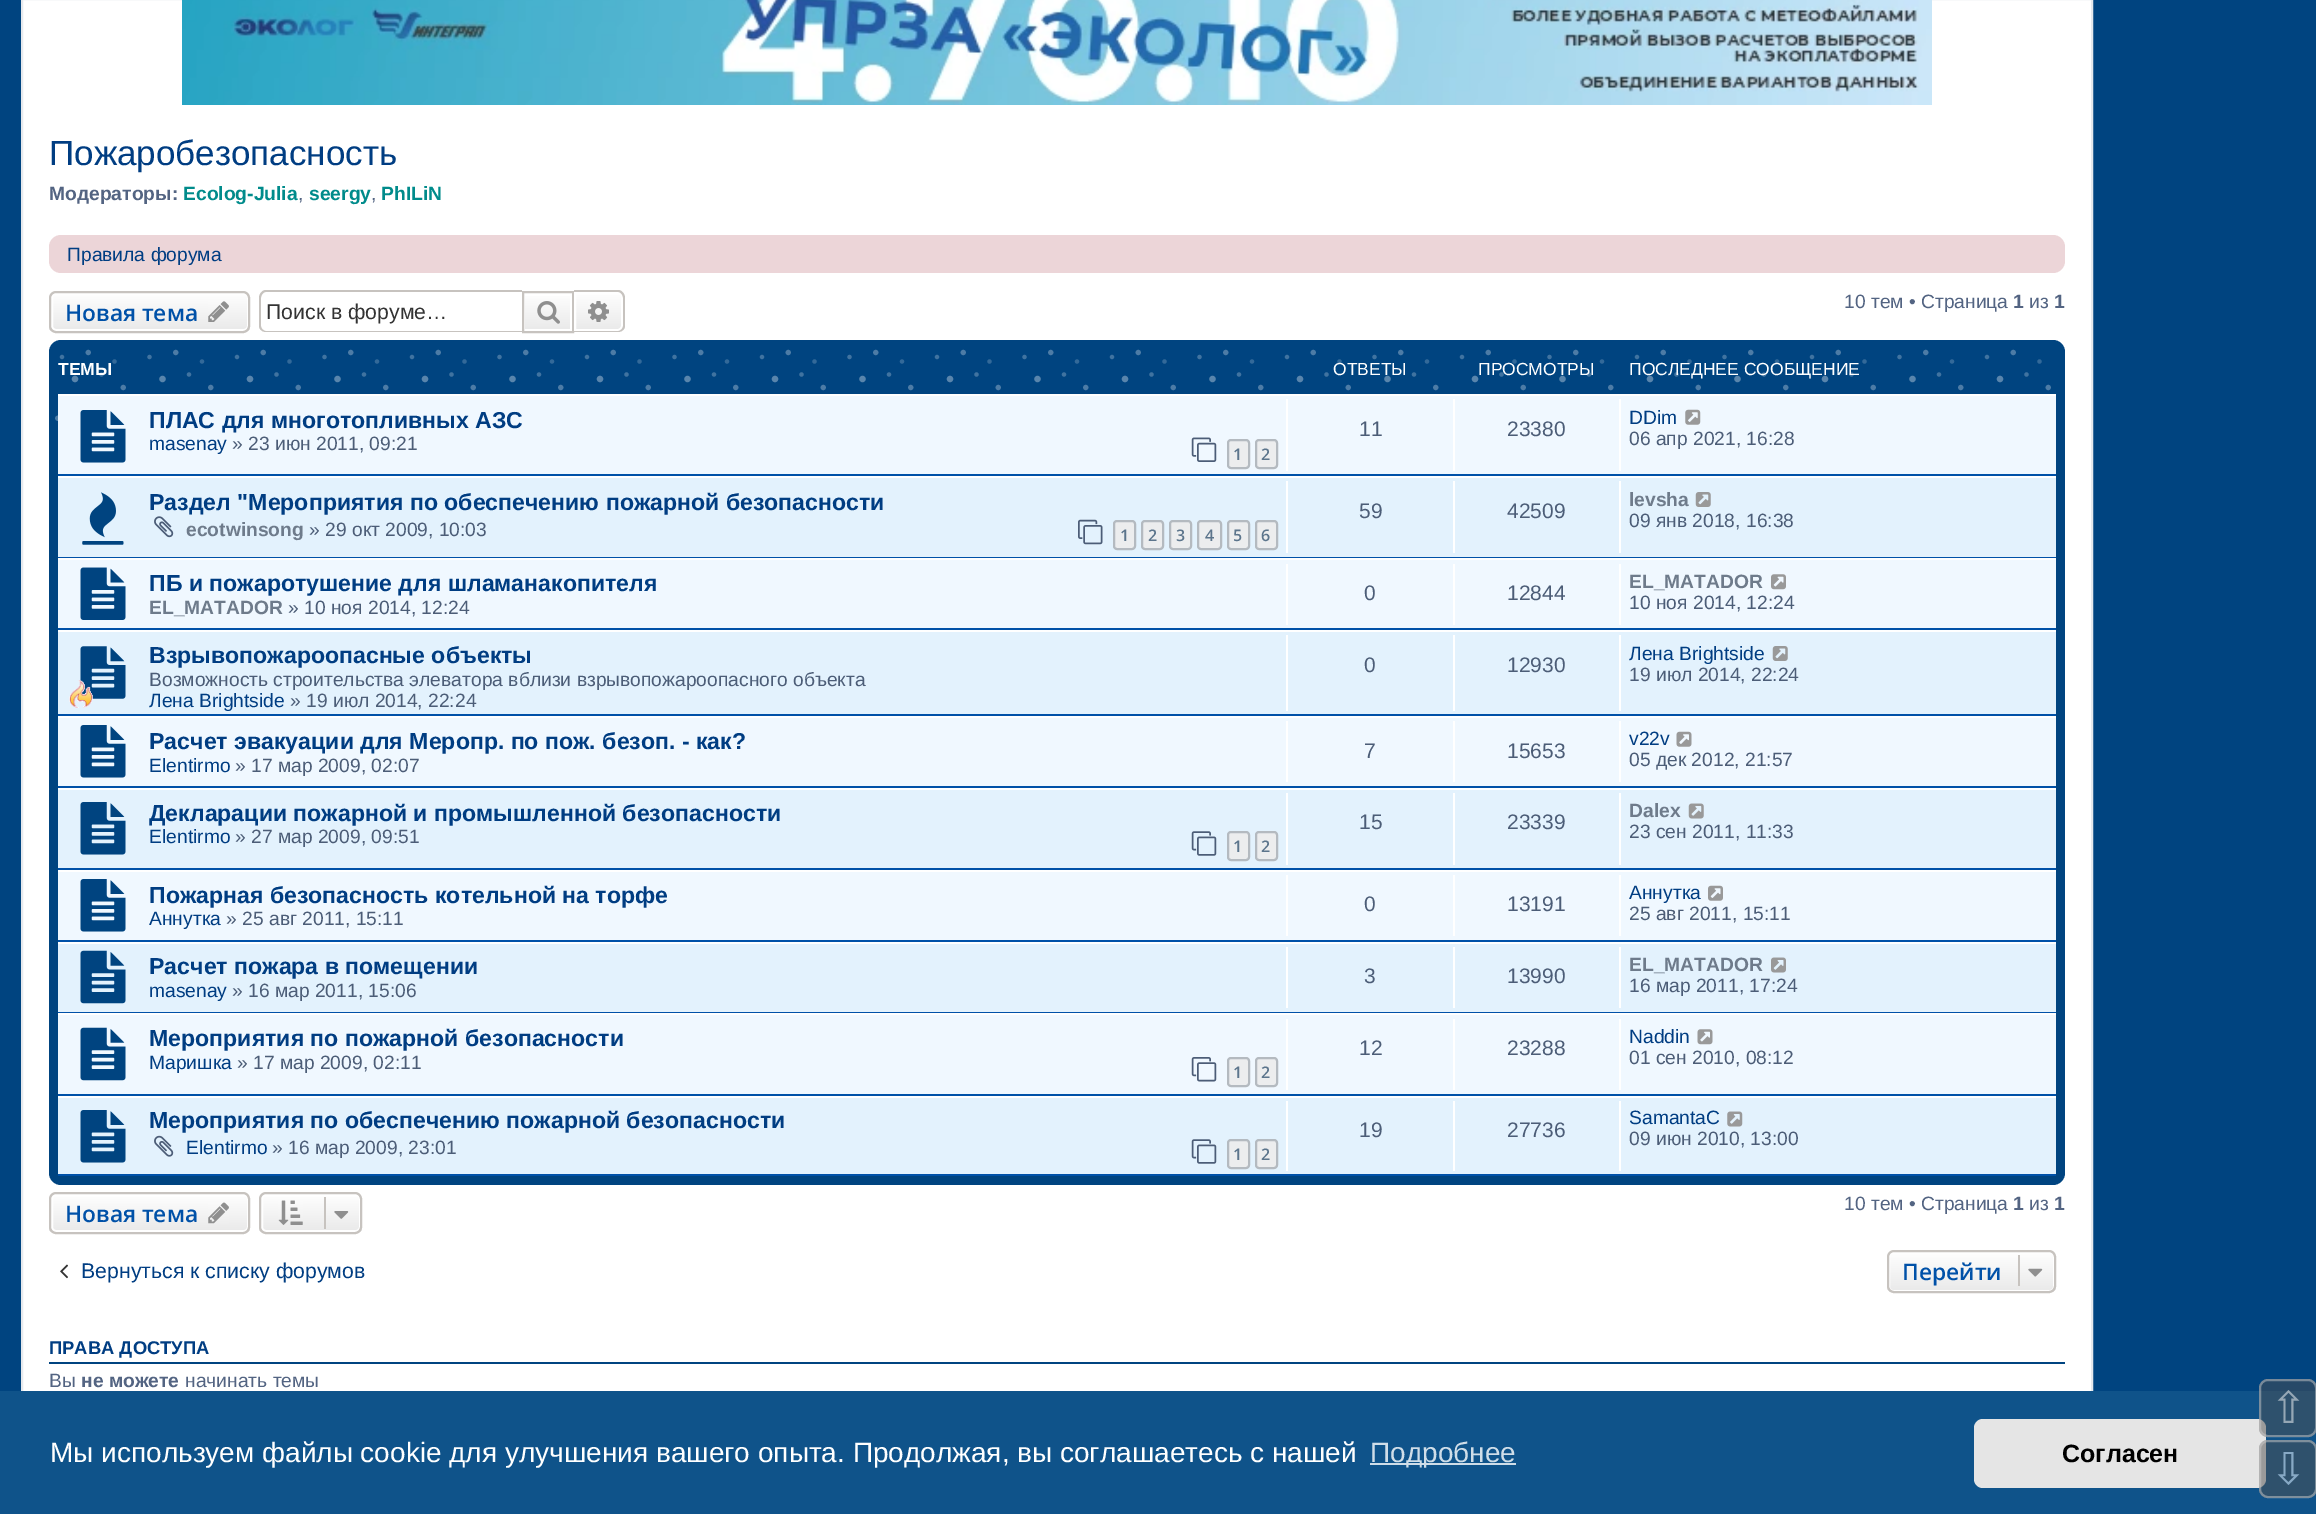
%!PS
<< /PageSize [2316 1514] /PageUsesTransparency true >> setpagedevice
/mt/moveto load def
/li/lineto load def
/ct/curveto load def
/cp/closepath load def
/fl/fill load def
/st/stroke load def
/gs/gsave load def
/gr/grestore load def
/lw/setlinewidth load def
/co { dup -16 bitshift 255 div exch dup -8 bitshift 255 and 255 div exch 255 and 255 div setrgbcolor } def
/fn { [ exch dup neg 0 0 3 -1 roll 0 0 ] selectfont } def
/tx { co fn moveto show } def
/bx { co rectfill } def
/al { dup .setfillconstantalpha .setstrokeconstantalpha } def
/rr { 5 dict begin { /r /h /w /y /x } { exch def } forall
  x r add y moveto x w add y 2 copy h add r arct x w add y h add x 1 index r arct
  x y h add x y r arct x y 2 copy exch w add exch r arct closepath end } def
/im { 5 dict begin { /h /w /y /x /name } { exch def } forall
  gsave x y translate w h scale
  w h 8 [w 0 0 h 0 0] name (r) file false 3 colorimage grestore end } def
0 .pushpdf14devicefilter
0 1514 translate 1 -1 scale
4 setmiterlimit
0 0 2316 1514 16#004480 bx
23 0 2068 1391 16#FFFFFF bx
16#E6E9ED co
2 lw
22 -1 2070 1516 rectstroke
(media/1.raw) 182 0 1750 105 im
16#ECD5D8 co
49 235 2016 38 12 rr fl
gs
49 291 201 42 7 rr clip newpath
gs 49 292 mt 250 292 li 250 331 li 49 331 li cp clip newpath
<< /ShadingType 2 /ColorSpace /DeviceRGB /Coords [150 292 150 331] /Extend [true true] /Function << /FunctionType 2 /Domain [0 1] /C0 [1 1 1] /C1 [.914 .914 .914] /N 1 >> >> shfill gr
gr
16#FFFFFF co
52 293 196 37 4 rr st
16#C7C3BF co
50 292 199 40 6 rr st
(media/2.raw) 208 301 21 21 im
266 290 mt 522 290 li 522 332 li 266 332 li 262 332 259 329 259 326 ct 259 298 li 259 294 262 290 266 290 ct cp 266 292 mt 522 292 li 522 331 li 266 331 li 263 331 261 328 261 326 ct 261 298 li 261 295 263 292 266 292 ct cp eofill
gs 525 296 mt 570 296 li 570 329 li 525 329 li cp clip newpath
<< /ShadingType 2 /ColorSpace /DeviceRGB /Coords [548 292 548 331] /Extend [true true] /Function << /FunctionType 2 /Domain [0 1] /C0 [1 1 1] /C1 [.914 .914 .914] /N 1 >> >> shfill gr
523 292 50 40 rectstroke
(media/3.raw) 537 301 23 23 im
gs 575 293 mt 618 293 li 620 293 622 295 622 297 ct 622 326 li 622 328 620 330 618 330 ct 575 330 li cp clip newpath
<< /ShadingType 2 /ColorSpace /DeviceRGB /Coords [599 292 599 331] /Extend [true true] /Function << /FunctionType 2 /Domain [0 1] /C0 [1 1 1] /C1 [.914 .914 .914] /N 1 >> >> shfill gr
16#FFFFFF co
575 293 mt 618 293 li 620 293 622 295 622 297 ct 622 326 li 622 328 620 330 618 330 ct 575 330 li cp st
16#C7C3BF co
574 290 mt 618 290 li 622 290 625 294 625 298 ct 625 326 li 625 329 622 332 618 332 ct 574 332 li cp 574 292 mt 618 292 li 621 292 623 295 623 298 ct 623 326 li 623 328 621 331 618 331 ct 574 331 li cp eofill
(media/4.raw) 588 301 21 21 im
16#004480 co
49 340 2016 845 12 rr fl
16#4D7CA6 co
5.2 lw
1 setlinecap
[0 87.5] 0 setdash
57.8 418.2 mt 1983.1 418.2 li st
123.4 387.6 mt 2048.7 387.6 li st
16#4073A0 co
4.2 lw
101.5 374.5 mt 2026.9 374.5 li st
16#5985AC co
6.3 lw
75.2 378.9 mt 2000.6 378.9 li st
16#336999 co
4.2 lw
114.6 361.4 mt 2040 361.4 li st
16#4D7CA6 co
5.2 lw
88.4 352.6 mt 2013.7 352.6 li st
16#4073A0 co
4.2 lw
62.1 357 mt 1987.5 357 li st
58 396 1998 78 16#F0F8FF bx
58 394 1998 2 16#FFFFFF bx
58 474 1998 2 16#0051A8 bx
(media/5.raw) 80 410 46 53 im
(media/6.raw) 1191 437 26 25 im
16#ECEDEE co
1228 440 21 28 3 rr gs fl gr
16#B4BAC0 co
2 lw
0 setlinecap
[] 0 setdash
st
16#ECEDEE co
1256 440 21 28 3 rr gs fl gr
16#B4BAC0 co
st
1286 399 2 72 16#FFFFFF bx
1453 399 2 72 16#FFFFFF bx
1619 399 2 72 16#FFFFFF bx
(media/7.raw) 1685 409 16 16 im
58 478 1998 79 16#E3F2FD bx
58 476 1998 2 16#FFFFFF bx
58 557 1998 1 16#0051A8 bx
(media/8.raw) 82 492 42 53 im
(media/9.raw) 154 516 20 22 im
(media/10.raw) 1078 519 25 26 im
16#ECEDEE co
1114 521 21 28 3 rr gs fl gr
16#B4BAC0 co
st
16#ECEDEE co
1142 521 21 28 3 rr gs fl gr
16#B4BAC0 co
st
16#ECEDEE co
1170 521 21 28 3 rr gs fl gr
16#B4BAC0 co
st
16#ECEDEE co
1198 521 23 28 3 rr gs fl gr
16#B4BAC0 co
st
16#ECEDEE co
1228 521 21 28 3 rr gs fl gr
16#B4BAC0 co
st
16#ECEDEE co
1256 521 21 28 3 rr gs fl gr
16#B4BAC0 co
st
1286 481 2 72 16#FFFFFF bx
1453 481 2 72 16#FFFFFF bx
1619 481 2 72 16#FFFFFF bx
(media/11.raw) 1695 492 16 15 im
58 560 1998 68 16#F0F8FF bx
58 558 1998 2 16#FFFFFF bx
58 628 1998 2 16#0051A8 bx
(media/12.raw) 80 567 46 53 im
1286 564 2 61 16#FFFFFF bx
1453 564 2 61 16#FFFFFF bx
1619 564 2 61 16#FFFFFF bx
(media/13.raw) 1771 574 15 16 im
58 632 1998 82 16#E3F2FD bx
58 630 1998 2 16#FFFFFF bx
58 714 1998 2 16#0051A8 bx
(media/14.raw) 80 646 46 53 im
(media/15.raw) 69 680 24 28 im
1286 635 2 76 16#FFFFFF bx
1453 635 2 76 16#FFFFFF bx
1619 635 2 76 16#FFFFFF bx
(media/11.raw) 1772 646 16 15 im
58 718 1998 68 16#F0F8FF bx
58 716 1998 2 16#FFFFFF bx
58 786 1998 2 16#0051A8 bx
(media/5.raw) 80 725 46 53 im
1286 721 2 61 16#FFFFFF bx
1453 721 2 61 16#FFFFFF bx
1619 721 2 61 16#FFFFFF bx
(media/16.raw) 1676 731 16 16 im
58 790 1998 78 16#E3F2FD bx
58 788 1998 2 16#FFFFFF bx
58 868 1998 2 16#0051A8 bx
(media/17.raw) 80 802 46 53 im
(media/18.raw) 1191 831 26 25 im
16#ECEDEE co
1228 832 21 28 3 rr gs fl gr
16#B4BAC0 co
st
16#ECEDEE co
1256 832 21 28 3 rr gs fl gr
16#B4BAC0 co
st
1286 793 2 72 16#FFFFFF bx
1453 793 2 72 16#FFFFFF bx
1619 793 2 72 16#FFFFFF bx
(media/19.raw) 1688 803 16 16 im
58 872 1998 68 16#F0F8FF bx
58 870 1998 2 16#FFFFFF bx
58 940 1998 2 16#0051A8 bx
(media/5.raw) 80 879 46 53 im
1286 875 2 61 16#FFFFFF bx
1453 875 2 61 16#FFFFFF bx
1619 875 2 61 16#FFFFFF bx
(media/20.raw) 1708 885 15 16 im
58 944 1998 68 16#E3F2FD bx
58 942 1998 2 16#FFFFFF bx
58 1012 1998 1 16#0051A8 bx
(media/21.raw) 80 950 46 54 im
1286 947 2 61 16#FFFFFF bx
1453 947 2 61 16#FFFFFF bx
1619 947 2 61 16#FFFFFF bx
(media/22.raw) 1771 957 15 16 im
58 1015 1998 79 16#F0F8FF bx
58 1013 1998 2 16#FFFFFF bx
58 1094 1998 2 16#0051A8 bx
(media/23.raw) 80 1027 46 54 im
(media/24.raw) 1191 1057 26 25 im
16#ECEDEE co
1228 1058 21 28 3 rr gs fl gr
16#B4BAC0 co
st
16#ECEDEE co
1256 1058 21 28 3 rr gs fl gr
16#B4BAC0 co
st
1286 1019 2 71 16#FFFFFF bx
1453 1019 2 71 16#FFFFFF bx
1619 1019 2 71 16#FFFFFF bx
(media/25.raw) 1697 1029 16 16 im
58 1098 1998 76 16#E3F2FD bx
58 1096 1998 2 16#FFFFFF bx
58 1174 1998 2 16#0051A8 bx
(media/17.raw) 80 1110 46 53 im
(media/26.raw) 154 1135 20 22 im
(media/18.raw) 1191 1139 26 25 im
16#ECEDEE co
1228 1140 21 28 3 rr gs fl gr
16#B4BAC0 co
st
16#ECEDEE co
1256 1140 21 28 3 rr gs fl gr
16#B4BAC0 co
st
1286 1101 2 70 16#FFFFFF bx
1453 1101 2 70 16#FFFFFF bx
1619 1101 2 70 16#FFFFFF bx
(media/27.raw) 1727 1111 16 16 im
gs
49 1192 201 42 7 rr clip newpath
gs 49 1194 mt 250 1194 li 250 1232 li 49 1232 li cp clip newpath
<< /ShadingType 2 /ColorSpace /DeviceRGB /Coords [150 1194 150 1232] /Extend [true true] /Function << /FunctionType 2 /Domain [0 1] /C0 [1 1 1] /C1 [.914 .914 .914] /N 1 >> >> shfill gr
gr
52 1195 196 36 4 rr st
16#C7C3BF co
50 1193 199 40 6 rr st
(media/28.raw) 208 1202 21 22 im
gs
259 1192 103 42 7 rr clip newpath
gs 259 1194 mt 362 1194 li 362 1232 li 259 1232 li cp clip newpath
<< /ShadingType 2 /ColorSpace /DeviceRGB /Coords [311 1194 311 1232] /Extend [true true] /Function << /FunctionType 2 /Domain [0 1] /C0 [1 1 1] /C1 [.914 .914 .914] /N 1 >> >> shfill gr
gr
16#FFFFFF co
262 1195 98 36 4 rr st
16#C7C3BF co
260 1193 101 40 6 rr st
(media/29.raw) 278 1200 25 25 im
324 1197 2 32 16#C7C3BF bx
(media/30.raw) 334 1211 15 8 im
(media/31.raw) 60 1264 8 15 im
gs
1887 1250 169 43 7 rr clip newpath
gs 1887 1251 mt 2056 1251 li 2056 1292 li 1887 1292 li cp clip newpath
<< /ShadingType 2 /ColorSpace /DeviceRGB /Coords [1971 1251 1971 1292] /Extend [true true] /Function << /FunctionType 2 /Domain [0 1] /C0 [1 1 1] /C1 [.914 .914 .914] /N 1 >> >> shfill gr
gr
16#FFFFFF co
1889 1252 165 39 4 rr st
16#C7C3BF co
1888 1251 167 41 6 rr st
2018 1255 2 31 16#C7C3BF bx
(media/32.raw) 2028 1268 15 9 im
49 1362 2016 2 16#004480 bx
0 1391 2316 123 16#0F538A bx
16#E5E5E5 co
1974 1419 292 69 9 rr fl
0.49 al
16#4F4F4F co
2259 1379 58 58 9 rr fl
16#CCCCCC co
2260 1380 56 56 8 rr st
1 al
1370 1463 146 2 16#CFDDE8 bx
0.5 al
16#4F4F4F co
2259 1440 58 58 9 rr fl
16#CCCCCC co
2260 1441 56 56 8 rr st
1 al
(Пожаробезопасность) 49 165 /LiberationSans-Regular 35 16#003D82 tx
(Модераторы:) 49 200 /LiberationSans-Bold 19.25 16#536482 tx
(Ecolog-Julia) 183 200 /LiberationSans-Bold 19.25 16#008B8B tx
(,) 298 200 /LiberationSans-Regular 19.25 16#536482 tx
(seergy) 309 200 /LiberationSans-Bold 19.25 16#008B8B tx
(,) 371 200 /LiberationSans-Regular 19.25 16#536482 tx
(PhILiN) 381 200 /LiberationSans-Bold 19.25 16#008B8B tx
(Правила форума) 67 261 /LiberationSans-Regular 19.25 16#003D82 tx
(Новая тема) 65 321 /OpenSans-SemiBold 22.75 16#0051A8 tx
(Поиск в форуме…) 266 319 /LiberationSans-Regular 21.25 16#333333 tx
(10 тем • Страница) 1844 308 /LiberationSans-Regular 19.25 16#536482 tx
(1) 2013 308 /LiberationSans-Bold 19.25 16#536482 tx
(из) 2029 308 /LiberationSans-Regular 19.25 16#536482 tx
(1) 2054 308 /LiberationSans-Bold 19.25 16#536482 tx
(ТЕМЫ) 58 375 /LiberationSans-Bold 17.5 16#FFFFFF tx
(ОТВЕТЫ) 1333 375 /LiberationSans-Regular 17.5 16#FFFFFF tx
(ПРОСМОТРЫ) 1478 375 /LiberationSans-Regular 17.5 16#FFFFFF tx
(ПОСЛЕДНЕЕ СООБЩЕНИЕ) 1629 375 /LiberationSans-Regular 17.5 16#FFFFFF tx
(ПЛАС для многотопливных АЗС) 149 428 /LiberationSans-Bold 23.1 16#003D82 tx
(masenay) 149 450 /LiberationSans-Regular 19.25 16#003D82 tx
(» 23 июн 2011, 09:21) 232 450 /LiberationSans-Regular 19.25 16#4C5D77 tx
(1) 1233 460 /OpenSans-SemiBold 16 16#5C758C tx
(2) 1261 460 /OpenSans-SemiBold 16 16#5C758C tx
(11) 1359 436 /LiberationSans-Regular 21 16#4C5D77 tx
(23380) 1507 436 /LiberationSans-Regular 21 16#4C5D77 tx
(DDim) 1629 424 /LiberationSans-Regular 19.25 16#003D82 tx
(06 апр 2021, 16:28) 1629 445 /LiberationSans-Regular 19.25 16#4C5D77 tx
(Раздел "Мероприятия по обеспечению пожарной безопасности) 149 510 /LiberationSans-Bold 23.1 16#003D82 tx
(ecotwinsong) 186 536 /LiberationSans-Bold 19.25 16#6E7B8B tx
(» 29 окт 2009, 10:03) 309 536 /LiberationSans-Regular 19.25 16#4C5D77 tx
(1) 1120 541 /OpenSans-SemiBold 16 16#5C758C tx
(2) 1148 541 /OpenSans-SemiBold 16 16#5C758C tx
(3) 1176 541 /OpenSans-SemiBold 16 16#5C758C tx
(4) 1205 541 /OpenSans-SemiBold 16 16#5C758C tx
(5) 1233 541 /OpenSans-SemiBold 16 16#5C758C tx
(6) 1261 541 /OpenSans-SemiBold 16 16#5C758C tx
(59) 1359 518 /LiberationSans-Regular 21 16#4C5D77 tx
(42509) 1507 518 /LiberationSans-Regular 21 16#4C5D77 tx
(levsha) 1629 506 /LiberationSans-Bold 19.25 16#6E7B8B tx
(09 янв 2018, 16:38) 1629 527 /LiberationSans-Regular 19.25 16#4C5D77 tx
(ПБ и пожаротушение для шламанакопителя) 149 591 /LiberationSans-Bold 23.1 16#003D82 tx
(EL_MATADOR) 149 614 /LiberationSans-Bold 19.25 16#6E7B8B tx
(» 10 ноя 2014, 12:24) 288 614 /LiberationSans-Regular 19.25 16#4C5D77 tx
(0) 1364 600 /LiberationSans-Regular 21 16#4C5D77 tx
(12844) 1507 600 /LiberationSans-Regular 21 16#4C5D77 tx
(EL_MATADOR) 1629 588 /LiberationSans-Bold 19.25 16#6E7B8B tx
(10 ноя 2014, 12:24) 1629 609 /LiberationSans-Regular 19.25 16#4C5D77 tx
(Взрывопожароопасные объекты) 149 663 /LiberationSans-Bold 23.1 16#003D82 tx
(Возможность строительства элеватора вблизи взрывопожароопасного объекта) 149 686 /LiberationSans-Regular 19.25 16#4C5D77 tx
(Лена Brightside) 149 707 /LiberationSans-Regular 19.25 16#003D82 tx
(» 19 июл 2014, 22:24) 290 707 /LiberationSans-Regular 19.25 16#4C5D77 tx
(0) 1364 672 /LiberationSans-Regular 21 16#4C5D77 tx
(12930) 1507 672 /LiberationSans-Regular 21 16#4C5D77 tx
(Лена Brightside) 1629 660 /LiberationSans-Regular 19.25 16#003D82 tx
(19 июл 2014, 22:24) 1629 681 /LiberationSans-Regular 19.25 16#4C5D77 tx
(Расчет эвакуации для Меропр. по пож. безоп. - как?) 149 749 /LiberationSans-Bold 23.1 16#003D82 tx
(Elentirmo) 149 772 /LiberationSans-Regular 19.25 16#003D82 tx
(» 17 мар 2009, 02:07) 235 772 /LiberationSans-Regular 19.25 16#4C5D77 tx
(7) 1364 758 /LiberationSans-Regular 21 16#4C5D77 tx
(15653) 1507 758 /LiberationSans-Regular 21 16#4C5D77 tx
(v22v) 1629 745 /LiberationSans-Regular 19.25 16#003D82 tx
(05 дек 2012, 21:57) 1629 766 /LiberationSans-Regular 19.25 16#4C5D77 tx
(Декларации пожарной и промышленной безопасности) 149 821 /LiberationSans-Bold 23.1 16#003D82 tx
(Elentirmo) 149 843 /LiberationSans-Regular 19.25 16#003D82 tx
(» 27 мар 2009, 09:51) 235 843 /LiberationSans-Regular 19.25 16#4C5D77 tx
(1) 1233 852 /OpenSans-SemiBold 16 16#5C758C tx
(2) 1261 852 /OpenSans-SemiBold 16 16#5C758C tx
(15) 1359 829 /LiberationSans-Regular 21 16#4C5D77 tx
(23339) 1507 829 /LiberationSans-Regular 21 16#4C5D77 tx
(Dalex) 1629 817 /LiberationSans-Bold 19.25 16#6E7B8B tx
(23 сен 2011, 11:33) 1629 838 /LiberationSans-Regular 19.25 16#4C5D77 tx
(Пожарная безопасность котельной на торфе) 149 903 /LiberationSans-Bold 23.1 16#003D82 tx
(Аннутка) 149 925 /LiberationSans-Regular 19.25 16#003D82 tx
(» 25 авг 2011, 15:11) 226 925 /LiberationSans-Regular 19.25 16#4C5D77 tx
(0) 1364 911 /LiberationSans-Regular 21 16#4C5D77 tx
(13191) 1507 911 /LiberationSans-Regular 21 16#4C5D77 tx
(Аннутка) 1629 899 /LiberationSans-Regular 19.25 16#003D82 tx
(25 авг 2011, 15:11) 1629 920 /LiberationSans-Regular 19.25 16#4C5D77 tx
(Расчет пожара в помещении) 149 974 /LiberationSans-Bold 23.1 16#003D82 tx
(masenay) 149 997 /LiberationSans-Regular 19.25 16#003D82 tx
(» 16 мар 2011, 15:06) 232 997 /LiberationSans-Regular 19.25 16#4C5D77 tx
(3) 1364 983 /LiberationSans-Regular 21 16#4C5D77 tx
(13990) 1507 983 /LiberationSans-Regular 21 16#4C5D77 tx
(EL_MATADOR) 1629 971 /LiberationSans-Bold 19.25 16#6E7B8B tx
(16 мар 2011, 17:24) 1629 992 /LiberationSans-Regular 19.25 16#4C5D77 tx
(Мероприятия по пожарной безопасности) 149 1046 /LiberationSans-Bold 23.1 16#003D82 tx
(Маришка) 149 1069 /LiberationSans-Regular 19.25 16#003D82 tx
(» 17 мар 2009, 02:11) 237 1069 /LiberationSans-Regular 19.25 16#4C5D77 tx
(1) 1233 1078 /OpenSans-SemiBold 16 16#5C758C tx
(2) 1261 1078 /OpenSans-SemiBold 16 16#5C758C tx
(12) 1359 1055 /LiberationSans-Regular 21 16#4C5D77 tx
(23288) 1507 1055 /LiberationSans-Regular 21 16#4C5D77 tx
(Naddin) 1629 1043 /LiberationSans-Regular 19.25 16#003D82 tx
(01 сен 2010, 08:12) 1629 1064 /LiberationSans-Regular 19.25 16#4C5D77 tx
(Мероприятия по обеспечению пожарной безопасности) 149 1128 /LiberationSans-Bold 23.1 16#003D82 tx
(Elentirmo) 186 1154 /LiberationSans-Regular 19.25 16#003D82 tx
(» 16 мар 2009, 23:01) 272 1154 /LiberationSans-Regular 19.25 16#4C5D77 tx
(1) 1233 1160 /OpenSans-SemiBold 16 16#5C758C tx
(2) 1261 1160 /OpenSans-SemiBold 16 16#5C758C tx
(19) 1359 1137 /LiberationSans-Regular 21 16#4C5D77 tx
(27736) 1507 1137 /LiberationSans-Regular 21 16#4C5D77 tx
(SamantaC) 1629 1124 /LiberationSans-Regular 19.25 16#003D82 tx
(09 июн 2010, 13:00) 1629 1145 /LiberationSans-Regular 19.25 16#4C5D77 tx
(Новая тема) 65 1222 /OpenSans-SemiBold 22.75 16#0051A8 tx
(10 тем • Страница) 1844 1210 /LiberationSans-Regular 19.25 16#536482 tx
(1) 2013 1210 /LiberationSans-Bold 19.25 16#536482 tx
(из) 2029 1210 /LiberationSans-Regular 19.25 16#536482 tx
(1) 2054 1210 /LiberationSans-Bold 19.25 16#536482 tx
(Вернуться к списку форумов) 81 1278 /LiberationSans-Regular 21.25 16#003D82 tx
(Перейти) 1902 1280 /OpenSans-SemiBold 22.75 16#0051A8 tx
(ПРАВА ДОСТУПА) 49 1354 /LiberationSans-Bold 18.4 16#003D82 tx
(Вы) 49 1387 /LiberationSans-Regular 19.25 16#536482 tx
(не можете) 81 1387 /LiberationSans-Bold 19.25 16#536482 tx
(начинать темы) 185 1387 /LiberationSans-Regular 19.25 16#536482 tx
(⇧) 2270 1423 /DejaVuSans-Regular 44 16#95A7B5 tx
(Мы используем файлы cookie для улучшения вашего опыта. Продолжая, вы соглашаетесь с нашей) 50 1462 /LiberationSans-Regular 28 16#FFFFFF tx
(Подробнее) 1370 1462 /LiberationSans-Regular 28 16#CFDDE8 tx
(Согласен) 2062 1462 /LiberationSans-Bold 25 16#000000 tx
(⇩) 2270 1484 /DejaVuSans-Regular 44 16#87A9C5 tx
.poppdf14devicefilter showpage
